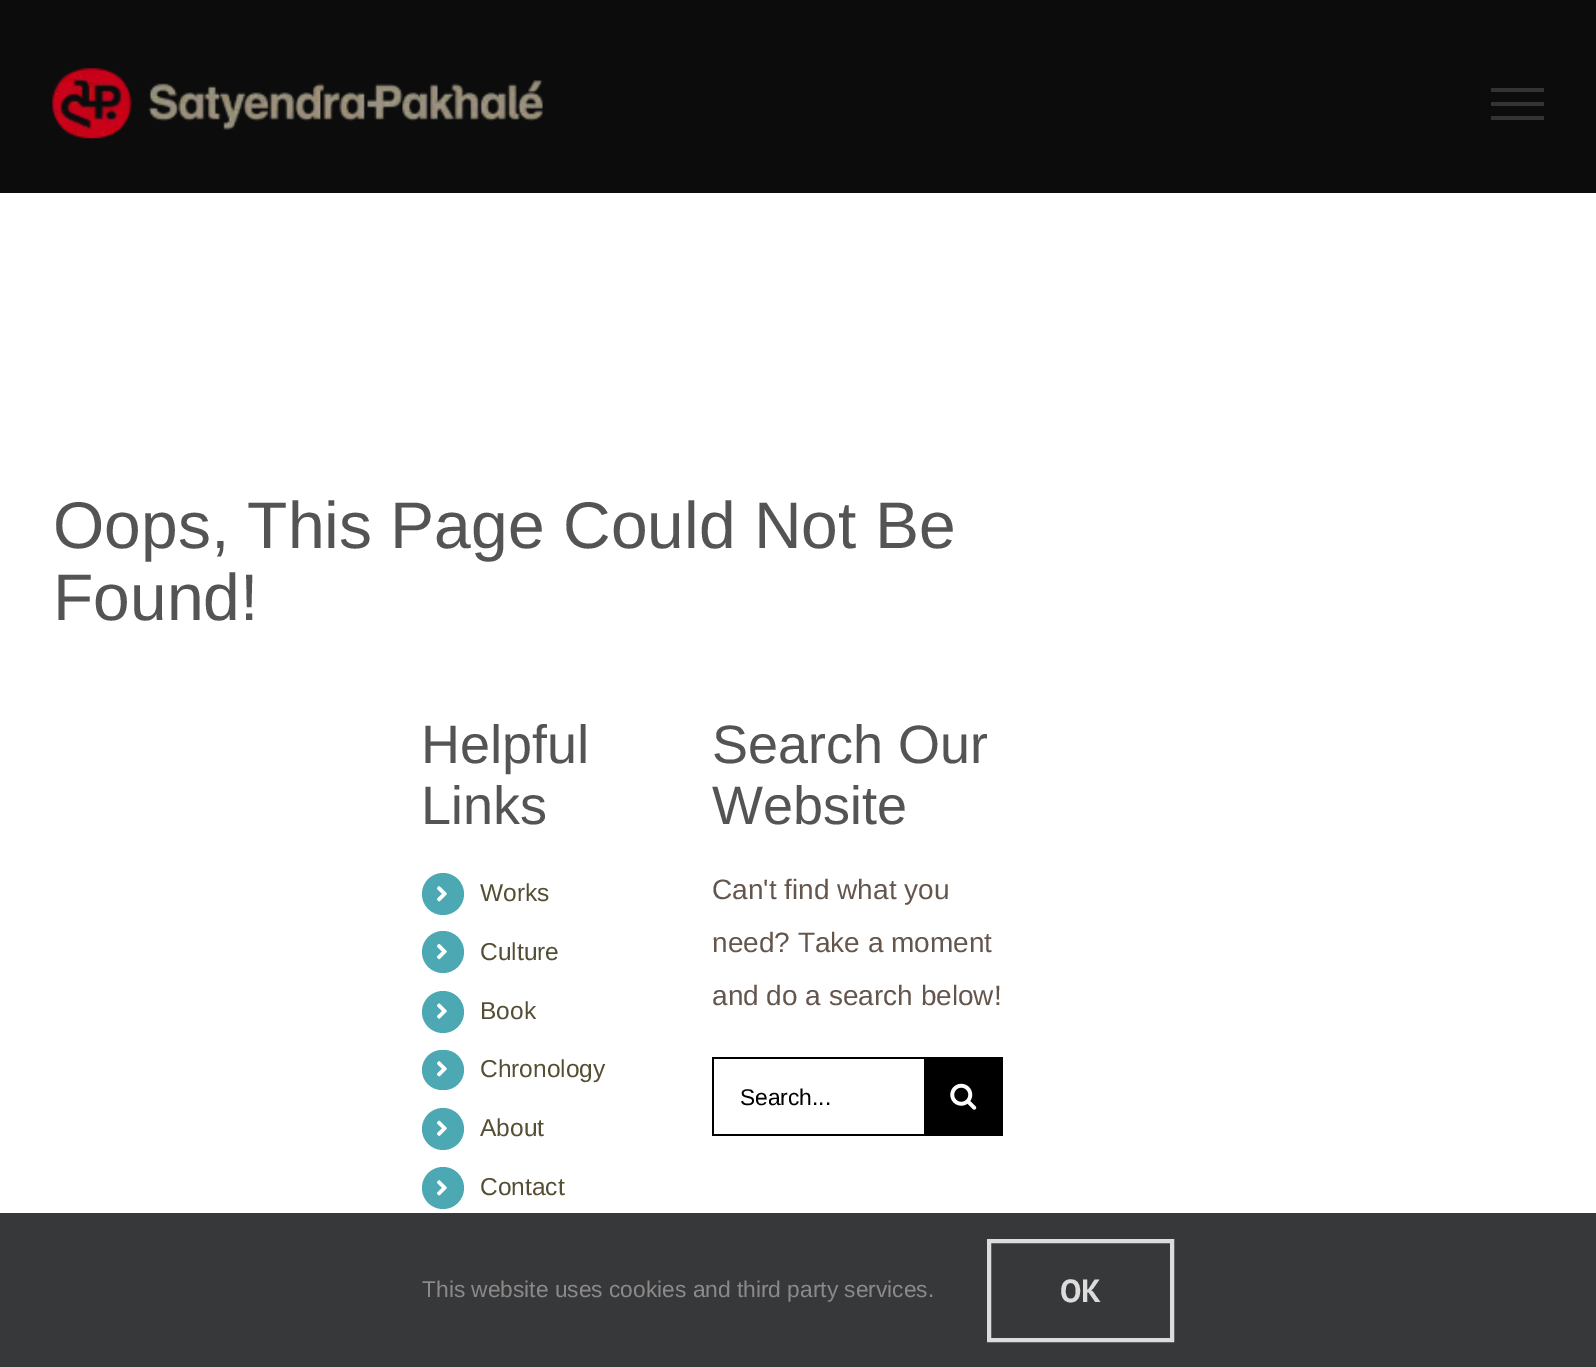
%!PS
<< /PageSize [1596 1367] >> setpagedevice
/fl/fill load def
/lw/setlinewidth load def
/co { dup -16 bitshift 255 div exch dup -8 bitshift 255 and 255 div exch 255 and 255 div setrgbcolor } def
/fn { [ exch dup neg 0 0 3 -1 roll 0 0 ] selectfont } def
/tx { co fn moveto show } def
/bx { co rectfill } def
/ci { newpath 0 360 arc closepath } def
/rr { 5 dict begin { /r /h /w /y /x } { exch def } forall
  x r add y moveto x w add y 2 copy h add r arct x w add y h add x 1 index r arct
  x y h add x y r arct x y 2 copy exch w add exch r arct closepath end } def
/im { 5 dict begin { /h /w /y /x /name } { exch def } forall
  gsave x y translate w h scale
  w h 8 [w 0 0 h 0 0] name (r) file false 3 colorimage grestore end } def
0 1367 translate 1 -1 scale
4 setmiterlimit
0 0 1596 1367 16#FFFFFF bx
0 0 1596 193 16#0C0C0D bx
(media/1.raw) 52 68 491 71 im
1491 88 53 4 16#333333 bx
1491 102 53 4 16#333333 bx
1491 116 53 4 16#333333 bx
16#4CA9B4 co
443 894 21 ci fl
(media/2.raw) 437 886 10 16 im
443 952 21 ci fl
(media/3.raw) 437 943 10 17 im
443 1012 21 ci fl
(media/4.raw) 437 1003 10 16 im
422 1050 42 40 20 rr fl
(media/2.raw) 437 1061 10 16 im
443 1129 21 ci fl
(media/5.raw) 437 1120 10 16 im
443 1188 21 ci fl
(media/2.raw) 437 1180 10 16 im
712 1057 212 2 16#000000 bx
712 1134 212 2 16#000000 bx
712 1057 2 79 16#000000 bx
924 1057 79 79 16#000000 bx
(media/6.raw) 950 1083 27 27 im
0 1213 1596 154 16#363839 bx
16#DCDCDC co
4 lw
989 1241 183 99 rectstroke
(Oops, This Page Could Not Be) 53 548 /LiberationSans-Regular 66 16#545454 tx
(Found!) 53 620 /LiberationSans-Regular 66 16#545454 tx
(Helpful) 421 763 /LiberationSans-Regular 54 16#545454 tx
(Links) 421 824 /LiberationSans-Regular 54 16#545454 tx
(Works) 480 901 /LiberationSans-Regular 24.5 16#544E34 tx
(Culture) 480 960 /LiberationSans-Regular 24.5 16#544E34 tx
(Book) 480 1019 /LiberationSans-Regular 24.5 16#544E34 tx
(Chronology) 480 1077 /LiberationSans-Regular 24.5 16#544E34 tx
(About) 480 1136 /LiberationSans-Regular 24.5 16#544E34 tx
(Contact) 480 1195 /LiberationSans-Regular 24.5 16#544E34 tx
(Search Our) 712 763 /LiberationSans-Regular 54 16#545454 tx
(Website) 712 824 /LiberationSans-Regular 54 16#545454 tx
(Can't find what you) 712 899 /LiberationSans-Regular 28 16#64564D tx
(need? Take a moment) 712 952 /LiberationSans-Regular 28 16#64564D tx
(and do a search below!) 712 1005 /LiberationSans-Regular 28 16#64564D tx
(Search...) 740 1105 /LiberationSans-Regular 22.75 16#000000 tx
(This website uses cookies and third party services.) 422 1297 /LiberationSans-Regular 22.75 16#8C8989 tx
(OK) 1060 1302 /PTSans-Bold 32 16#DCDCDC tx
showpage
